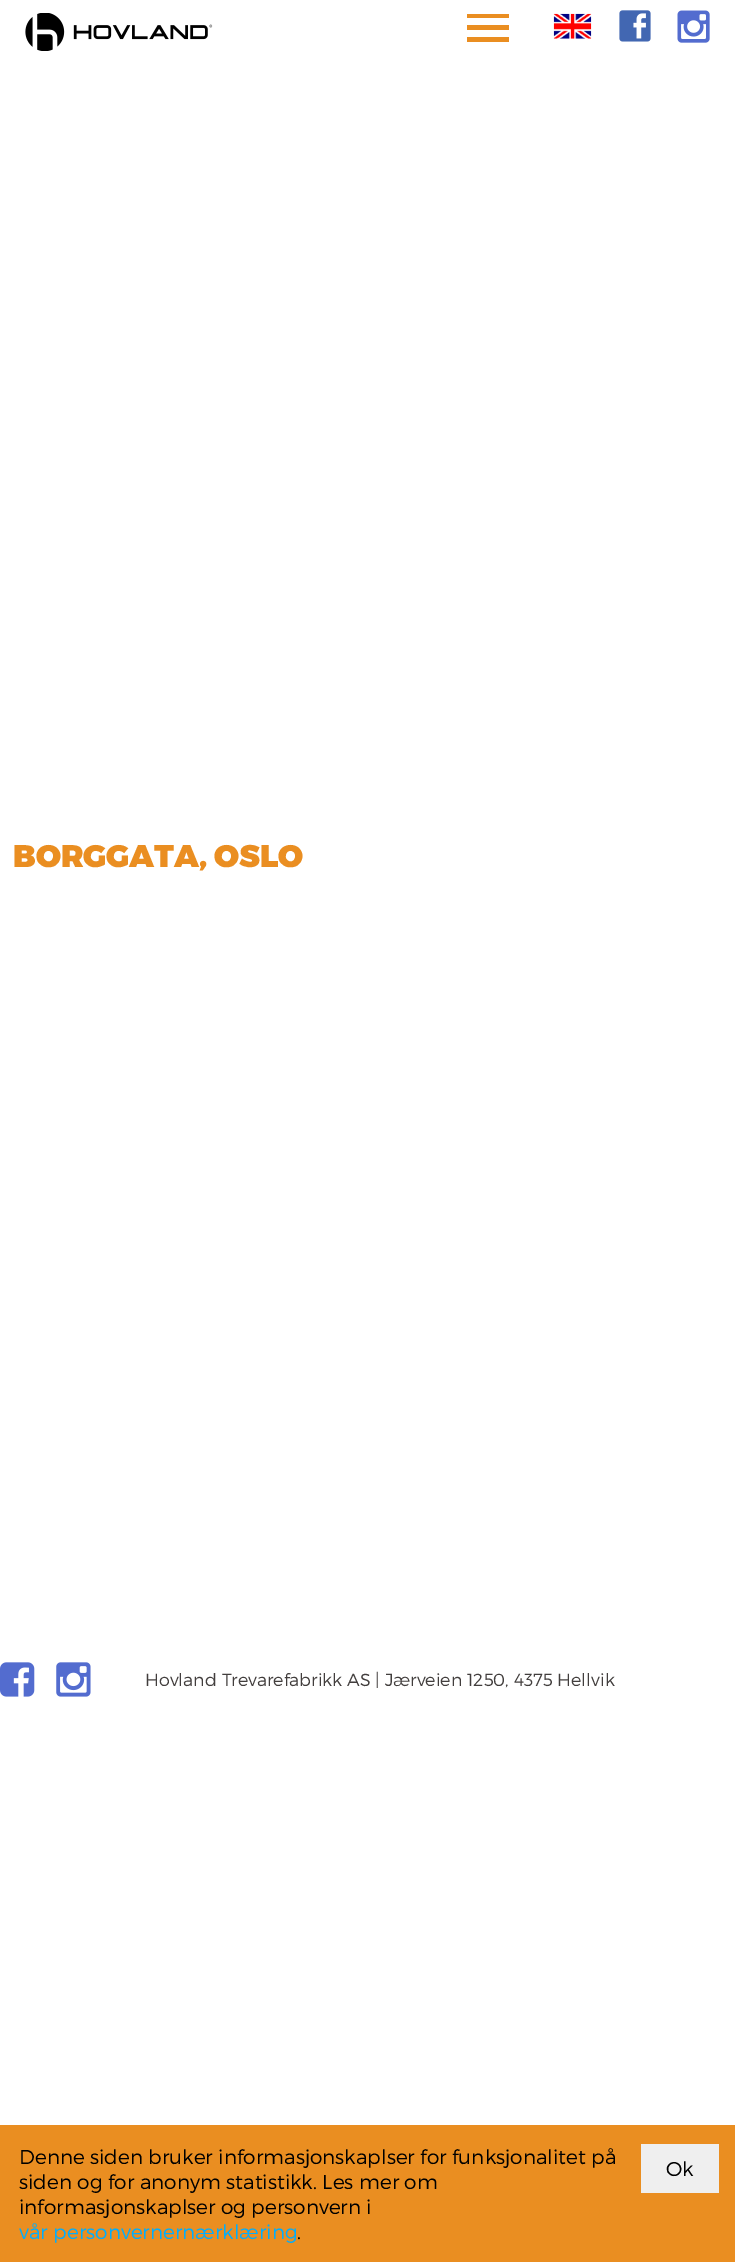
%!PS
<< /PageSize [735 2262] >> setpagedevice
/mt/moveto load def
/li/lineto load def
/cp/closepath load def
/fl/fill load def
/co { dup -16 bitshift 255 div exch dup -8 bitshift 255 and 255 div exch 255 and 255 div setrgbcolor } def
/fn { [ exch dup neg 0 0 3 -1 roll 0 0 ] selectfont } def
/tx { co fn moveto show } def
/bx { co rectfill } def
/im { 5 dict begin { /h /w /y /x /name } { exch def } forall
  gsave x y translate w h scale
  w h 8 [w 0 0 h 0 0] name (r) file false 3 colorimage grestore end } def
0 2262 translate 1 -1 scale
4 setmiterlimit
0 0 735 2262 16#FFFFFF bx
(media/1.raw) 25 13 188 38 im
16#EA8E21 co
467 14 mt 509 14 li 509 18 li 467 18 li cp 467 25 mt 509 25 li 509 30 li 467 30 li cp 467 37 mt 509 37 li 509 42 li 467 42 li cp fl
(media/2.raw) 553 13 39 26 im
(media/3.raw) 619 10 32 32 im
(media/4.raw) 677 10 33 33 im
(media/5.raw) 0 1662 35 35 im
(media/6.raw) 56 1662 35 35 im
0 2125 735 137 16#EA8E21 bx
641 2144 78 49 16#EFEFEF bx
(BORGGATA, OSLO) 13 867 /Montserrat-Black 31.25 16#EA8E21 tx
(Hovland Trevarefabrikk AS | Jærveien 1250, 4375 Hellvik) 145 1686 /Montserrat-Light 17.5 16#423E3D tx
(Denne siden bruker informasjonskaplser for funksjonalitet på) 19 2164 /Montserrat-Light 20 16#000000 tx
(siden og for anonym statistikk. Les mer om) 19 2189 /Montserrat-Light 20 16#000000 tx
(informasjonskaplser og personvern i) 19 2214 /Montserrat-Light 20 16#000000 tx
(vår personvernernærklæring) 19 2239 /Montserrat-Light 20 16#00AEFF tx
(.) 297 2239 /Montserrat-Light 20 16#000000 tx
(Ok) 666 2176 /Montserrat-Light 20 16#000000 tx
showpage
